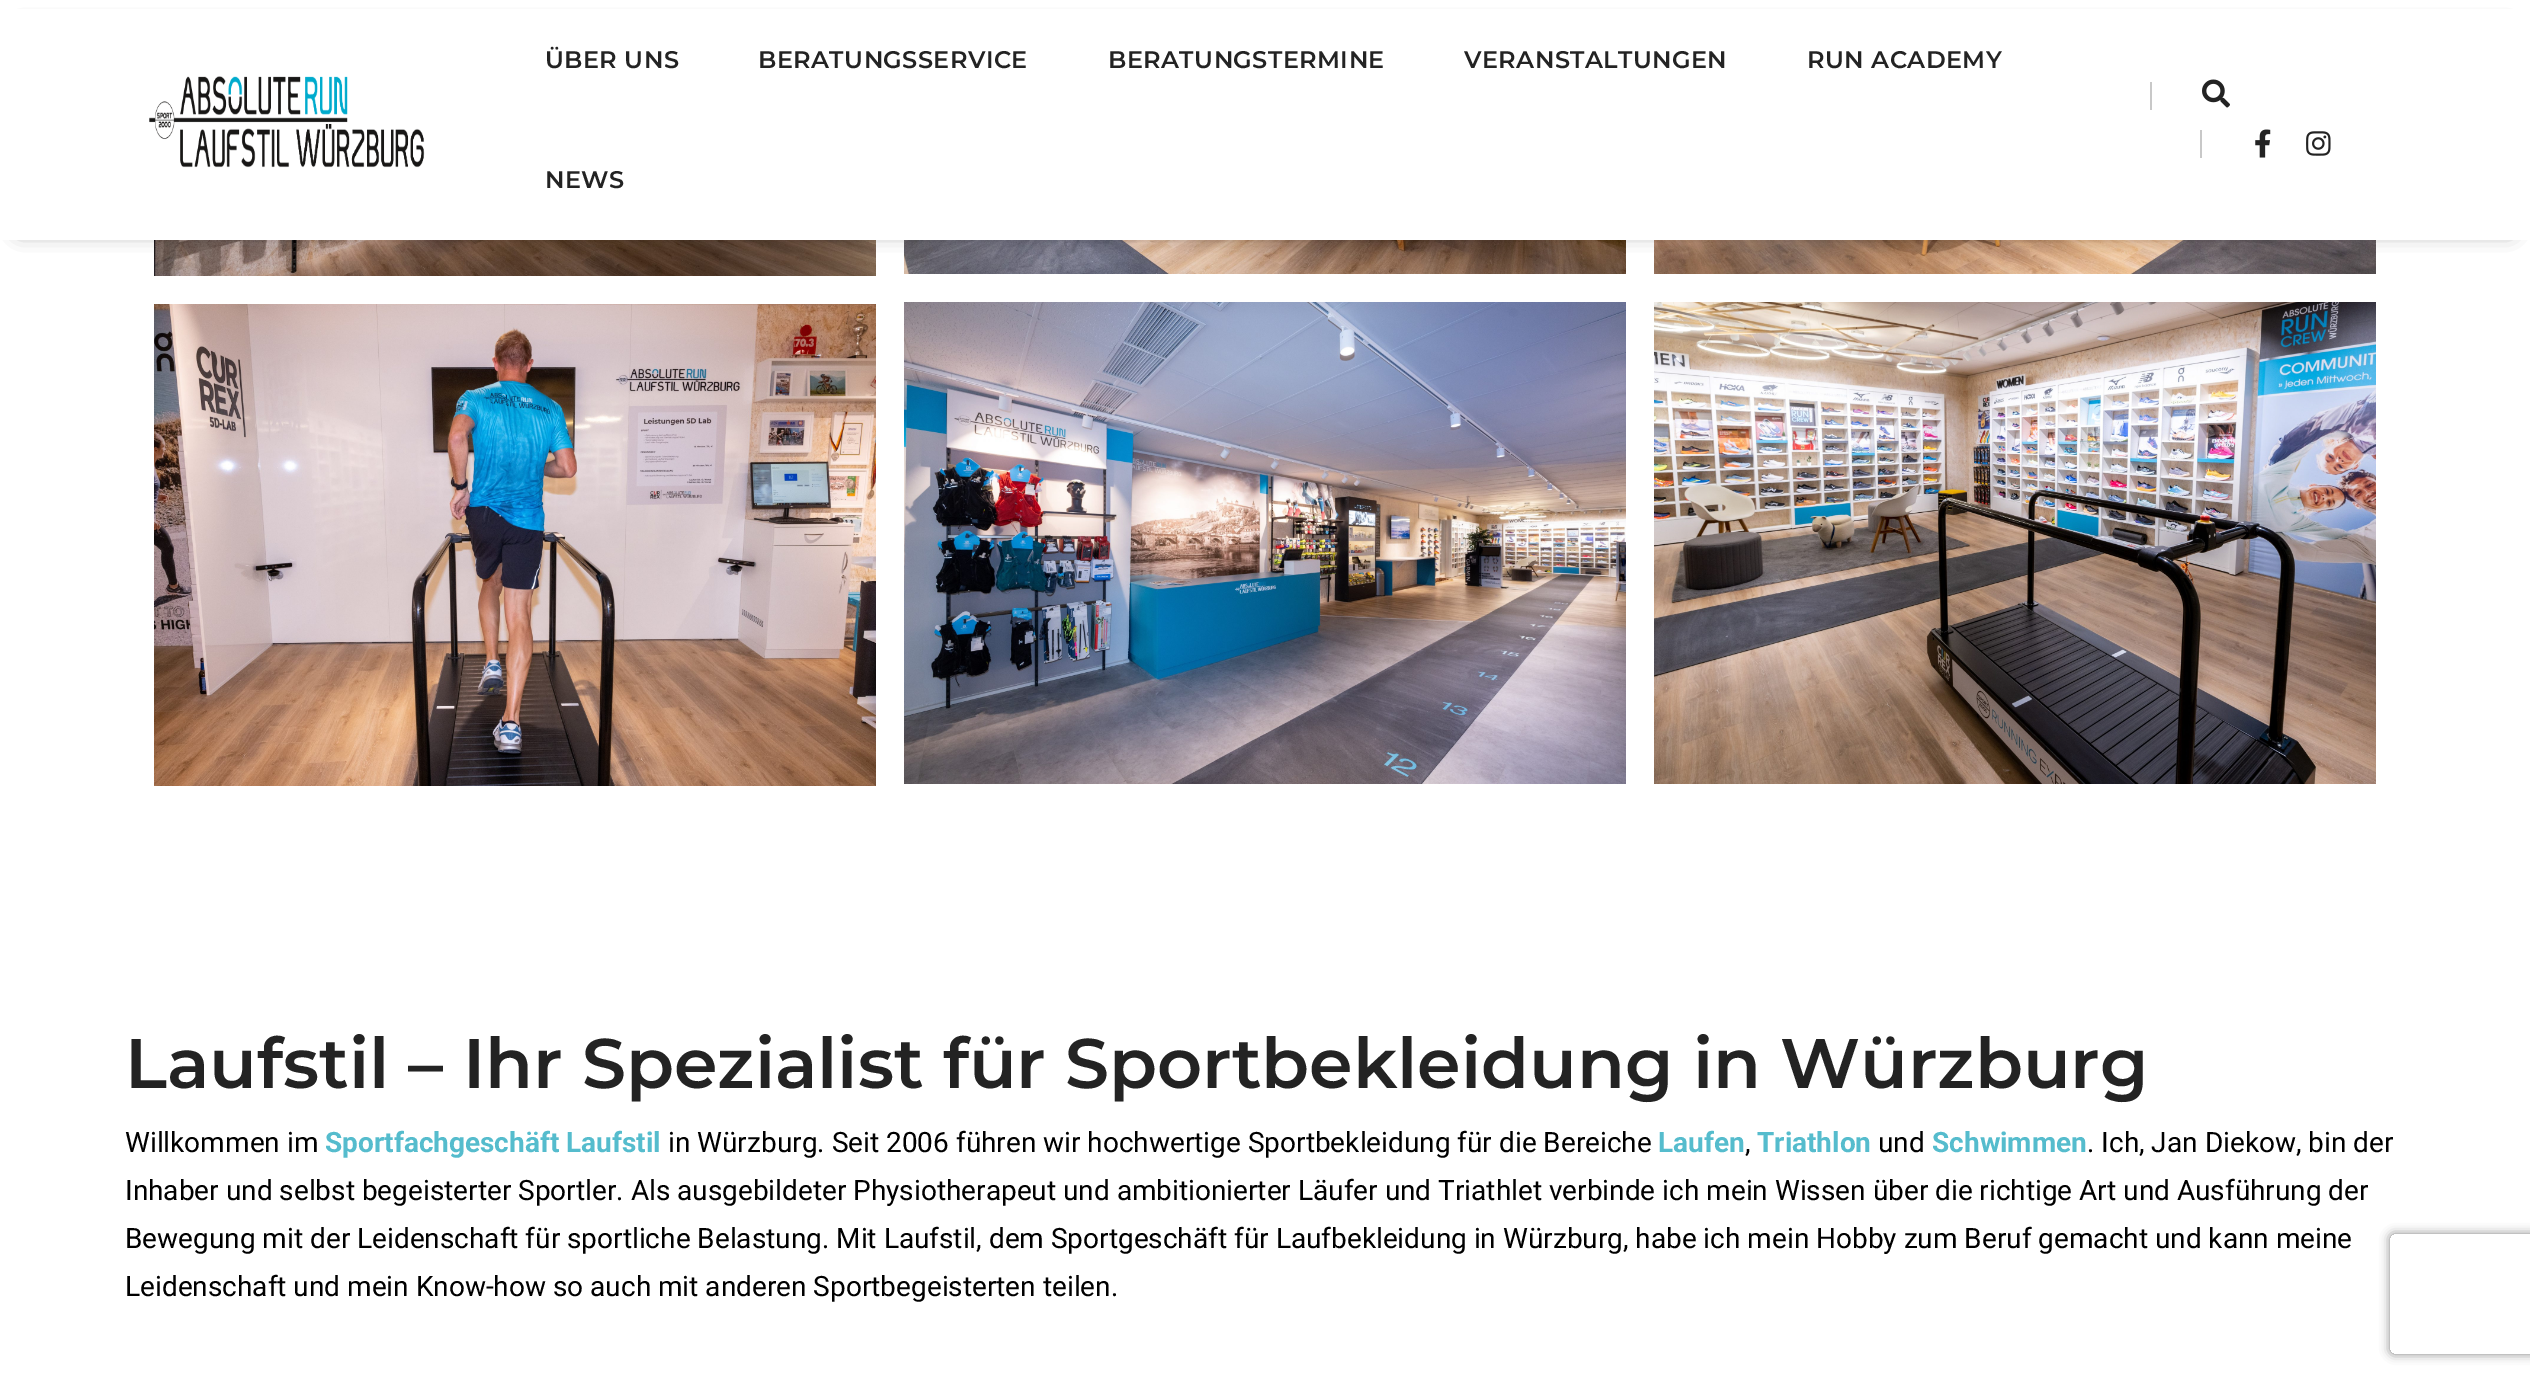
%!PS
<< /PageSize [2530 1381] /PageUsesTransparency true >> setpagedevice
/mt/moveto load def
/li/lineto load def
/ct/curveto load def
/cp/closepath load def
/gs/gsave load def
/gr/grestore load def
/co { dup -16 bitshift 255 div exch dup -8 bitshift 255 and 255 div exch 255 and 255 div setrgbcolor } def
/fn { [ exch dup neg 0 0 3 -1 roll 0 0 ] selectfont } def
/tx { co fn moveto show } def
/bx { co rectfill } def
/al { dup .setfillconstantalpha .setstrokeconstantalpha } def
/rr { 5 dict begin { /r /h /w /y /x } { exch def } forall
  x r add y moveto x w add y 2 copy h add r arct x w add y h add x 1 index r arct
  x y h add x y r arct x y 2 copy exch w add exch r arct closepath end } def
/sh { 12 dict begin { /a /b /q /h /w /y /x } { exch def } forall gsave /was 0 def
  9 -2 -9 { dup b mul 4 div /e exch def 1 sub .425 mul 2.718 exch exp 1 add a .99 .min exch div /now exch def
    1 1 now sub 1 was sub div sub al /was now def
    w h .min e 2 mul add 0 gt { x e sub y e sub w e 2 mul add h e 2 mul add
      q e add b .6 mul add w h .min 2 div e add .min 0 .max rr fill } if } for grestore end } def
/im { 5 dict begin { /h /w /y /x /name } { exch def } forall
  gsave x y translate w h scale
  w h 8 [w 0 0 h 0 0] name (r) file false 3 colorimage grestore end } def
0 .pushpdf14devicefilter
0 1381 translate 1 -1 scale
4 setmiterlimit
0 0 2530 1381 16#FFFFFF bx
(media/5.raw) 154 240 722 36 im
(media/6.raw) 904 240 722 34 im
(media/7.raw) 1654 240 722 34 im
16#000000 co
20 30 2490 200 0 10 .6 sh
0 9 2530 231 16#FFFFFF bx
(media/1.raw) 149 76 276 92 im
2150 82 2 28 16#C8C8C8 bx
(media/2.raw) 2202 79 28 29 im
2200 130 2 28 16#C8C8C8 bx
(media/3.raw) 2255 129 16 29 im
(media/4.raw) 2306 131 25 25 im
(media/8.raw) 154 304 722 482 im
(media/9.raw) 904 302 722 482 im
(media/10.raw) 1654 302 722 482 im
gs
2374 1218 mt 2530 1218 li 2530 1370 li 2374 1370 li cp 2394 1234 mt 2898 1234 li 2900 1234 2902 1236 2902 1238 ct 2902 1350 li 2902 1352 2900 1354 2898 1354 ct 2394 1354 li 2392 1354 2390 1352 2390 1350 ct 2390 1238 li 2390 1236 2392 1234 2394 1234 ct cp eoclip newpath
16#808080 co
2390 1234 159 120 4 5 1 sh
gr
/Montserrat-SemiBold 24 fn
16#232323 co
545 68 mt .4 0 (ÜBER UNS) ashow
758 68 mt .4 0 (BERATUNGSSERVICE) ashow
1108 68 mt .4 0 (BERATUNGSTERMINE) ashow
1464 68 mt .4 0 (VERANSTALTUNGEN) ashow
1807 68 mt .4 0 (RUN ACADEMY) ashow
545 188 mt .4 0 (NEWS) ashow
(Laufstil – Ihr Spezialist für Sportbekleidung in Würzburg) 125 1088 /Montserrat-SemiBold 70 16#232323 tx
(Willkommen im) 125 1152 /Roboto-Regular 28 16#000000 tx
(Sportfachgeschäft Laufstil) 325 1152 /Roboto-Bold 28 16#55BCCD tx
(in Würzburg. Seit 2006 führen wir hochwertige Sportbekleidung für die Bereiche) 668 1152 /Roboto-Regular 28 16#000000 tx
(Laufen) 1658 1152 /Roboto-Bold 28 16#55BCCD tx
(,) 1745 1152 /Roboto-Regular 28 16#000000 tx
(Triathlon) 1757 1152 /Roboto-Bold 28 16#55BCCD tx
(und) 1878 1152 /Roboto-Regular 28 16#000000 tx
(Schwimmen) 1932 1152 /Roboto-Bold 28 16#55BCCD tx
(. Ich, Jan Diekow, bin der) 2087 1152 /Roboto-Regular 28 16#000000 tx
(Inhaber und selbst begeisterter Sportler. Als ausgebildeter Physiotherapeut und ambitionierter Läufer und Triathlet verbinde ich mein Wissen über die richtige Art und Ausführung der) 125 1200 /Roboto-Regular 28 16#000000 tx
(Bewegung mit der Leidenschaft für sportliche Belastung. Mit Laufstil, dem Sportgeschäft für Laufbekleidung in Würzburg, habe ich mein Hobby zum Beruf gemacht und kann meine) 125 1248 /Roboto-Regular 28 16#000000 tx
(Leidenschaft und mein Know-how so auch mit anderen Sportbegeisterten teilen.) 125 1296 /Roboto-Regular 28 16#000000 tx
.poppdf14devicefilter showpage
